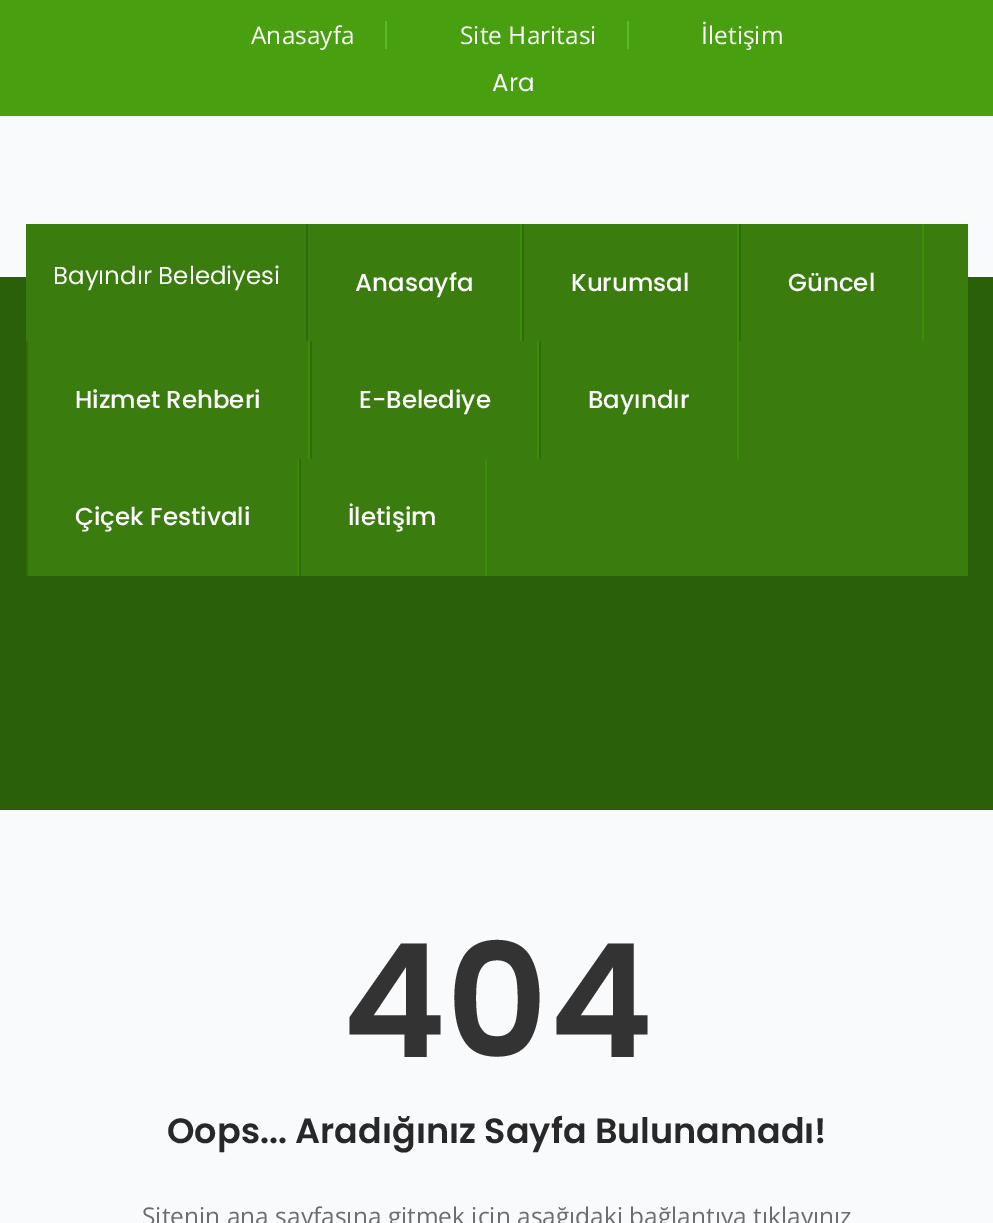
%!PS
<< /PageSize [993 1223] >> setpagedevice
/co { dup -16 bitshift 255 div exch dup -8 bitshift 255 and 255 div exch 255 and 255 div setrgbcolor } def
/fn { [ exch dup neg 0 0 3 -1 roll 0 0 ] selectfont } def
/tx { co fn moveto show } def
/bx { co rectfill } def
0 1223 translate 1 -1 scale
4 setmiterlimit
0 0 993 1223 16#F8FAFC bx
0 0 993 116 16#489F10 bx
385 21 2 28 16#5EB923 bx
627 21 2 28 16#5EB923 bx
0 277 993 533 16#2B600A bx
26 224 942 352 16#3A7D0E bx
520 224 2 117 16#3C8E06 bx
306 224 2 117 16#316B0B bx
737 224 2 235 16#3C8E06 bx
522 224 2 117 16#316B0B bx
922 224 2 117 16#3C8E06 bx
739 224 2 117 16#316B0B bx
308 341 2 118 16#3C8E06 bx
26 341 2 235 16#316B0B bx
537 341 2 118 16#3C8E06 bx
310 341 2 118 16#316B0B bx
539 341 2 118 16#316B0B bx
298 459 1 117 16#3C8E06 bx
485 459 2 117 16#3C8E06 bx
299 459 2 117 16#316B0B bx
(Anasayfa) 251 44 /OpenSans-Regular 24.5 16#FFFFFF tx
(Site Haritasi) 460 44 /OpenSans-Regular 24.5 16#FFFFFF tx
(İletişim) 701 44 /OpenSans-Regular 24.5 16#FFFFFF tx
(Ara) 492 91 /Poppins-Regular 24.5 16#FFFFFF tx
(Bayındır Belediyesi) 53 284 /Poppins-Regular 24.5 16#FFFFFF tx
(Anasayfa) 355 291 /Poppins-Medium 24.5 16#FFFFFF tx
(Kurumsal) 571 291 /Poppins-Medium 24.5 16#FFFFFF tx
(Güncel) 788 291 /Poppins-Medium 24.5 16#FFFFFF tx
(Hizmet Rehberi) 75 408 /Poppins-Medium 24.5 16#FFFFFF tx
(E-Belediye) 359 408 /Poppins-Medium 24.5 16#FFFFFF tx
(Bayındır) 588 408 /Poppins-Medium 24.5 16#FFFFFF tx
(Çiçek Festivali) 75 525 /Poppins-Medium 24.5 16#FFFFFF tx
(İletişim) 348 525 /Poppins-Medium 24.5 16#FFFFFF tx
(404) 342 1057 /Poppins-SemiBold 158 16#333333 tx
(Oops... Aradığınız Sayfa Bulunamadı!) 167 1143 /Poppins-SemiBold 35 16#282828 tx
(Sitenin ana sayfasına gitmek için aşağıdaki bağlantıya tıklayınız) 142 1225 /OpenSans-Regular 24.5 16#6D6D6D tx
showpage
